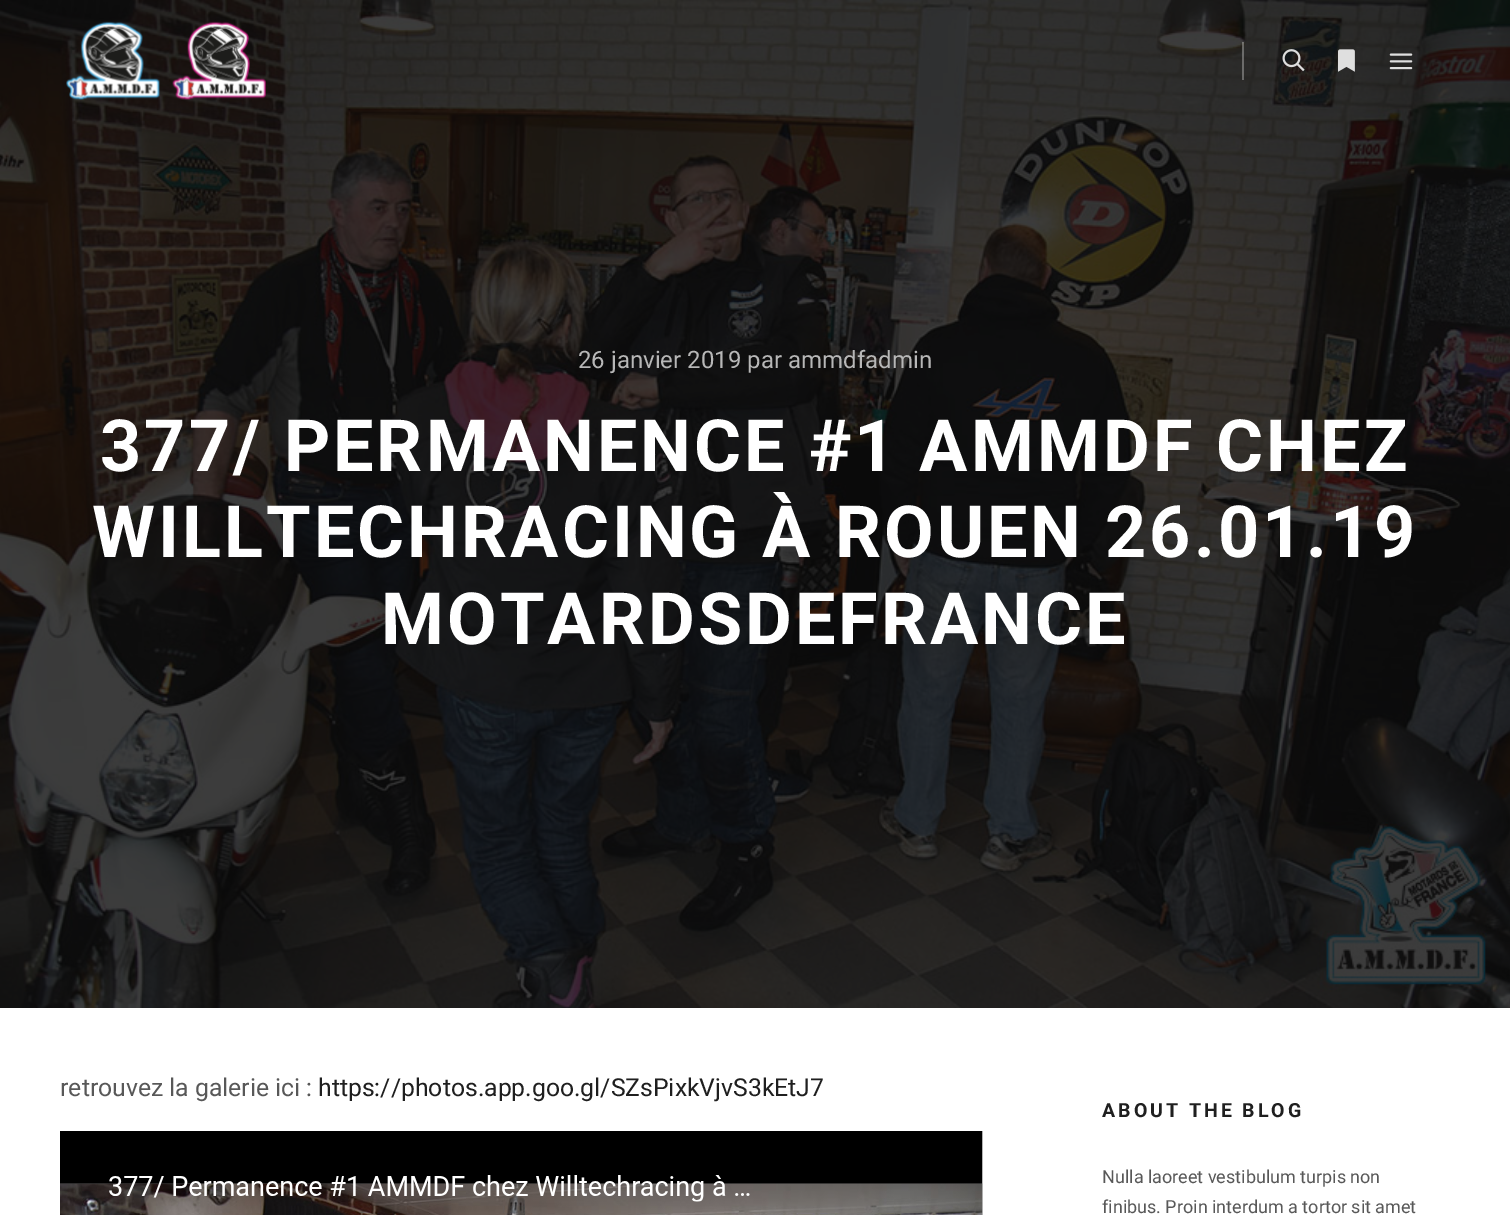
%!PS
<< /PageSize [1510 1215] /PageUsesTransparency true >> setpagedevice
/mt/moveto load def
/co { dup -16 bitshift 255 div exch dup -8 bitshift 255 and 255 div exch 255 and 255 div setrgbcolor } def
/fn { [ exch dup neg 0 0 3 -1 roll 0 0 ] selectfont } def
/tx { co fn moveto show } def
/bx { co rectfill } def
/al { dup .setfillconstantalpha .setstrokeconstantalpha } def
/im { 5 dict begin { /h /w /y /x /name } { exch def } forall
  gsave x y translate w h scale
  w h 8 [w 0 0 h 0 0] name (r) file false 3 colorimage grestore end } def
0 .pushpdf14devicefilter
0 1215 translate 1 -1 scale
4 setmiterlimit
0 0 1510 1215 16#FFFFFF bx
(media/5.raw) 0 0 1510 1008 im
(media/1.raw) 66 21 200 79 im
0.3 al
1242 42 2 38 16#FFFFFF bx
1 al
(media/2.raw) 1282 49 23 23 im
(media/3.raw) 1338 49 17 23 im
(media/4.raw) 1389 53 24 17 im
(media/6.raw) 60 1131 923 84 im
(26 janvier 2019 par) 578 368 /Roboto-Regular 24 16#B7B7B7 tx
(ammdfadmin) 788 368 /Roboto-Regular 24 16#B7B7B7 tx
/Roboto-Bold 72 fn
16#FFFFFF co
100 471 mt 3 0 (377/ PERMANENCE #1 AMMDF CHEZ) ashow
92 557 mt 3 0 (WILLTECHRACING À ROUEN 26.01.19) ashow
381 644 mt 3 0 (MOTARDSDEFRANCE) ashow
(retrouvez la galerie ici :) 60 1096 /Roboto-Regular 24.75 16#585858 tx
(https://photos.app.goo.gl/SZsPixkVjvS3kEtJ7) 318 1096 /Roboto-Regular 24.75 16#1F1F1F tx
/Roboto-Bold 19.5 fn
1102 1117 mt 3 0 (ABOUT THE BLOG) ashow
(Nulla laoreet vestibulum turpis non) 1102 1183 /Roboto-Regular 18 16#585858 tx
(finibus. Proin interdum a tortor sit amet) 1102 1213 /Roboto-Regular 18 16#585858 tx
.poppdf14devicefilter showpage
